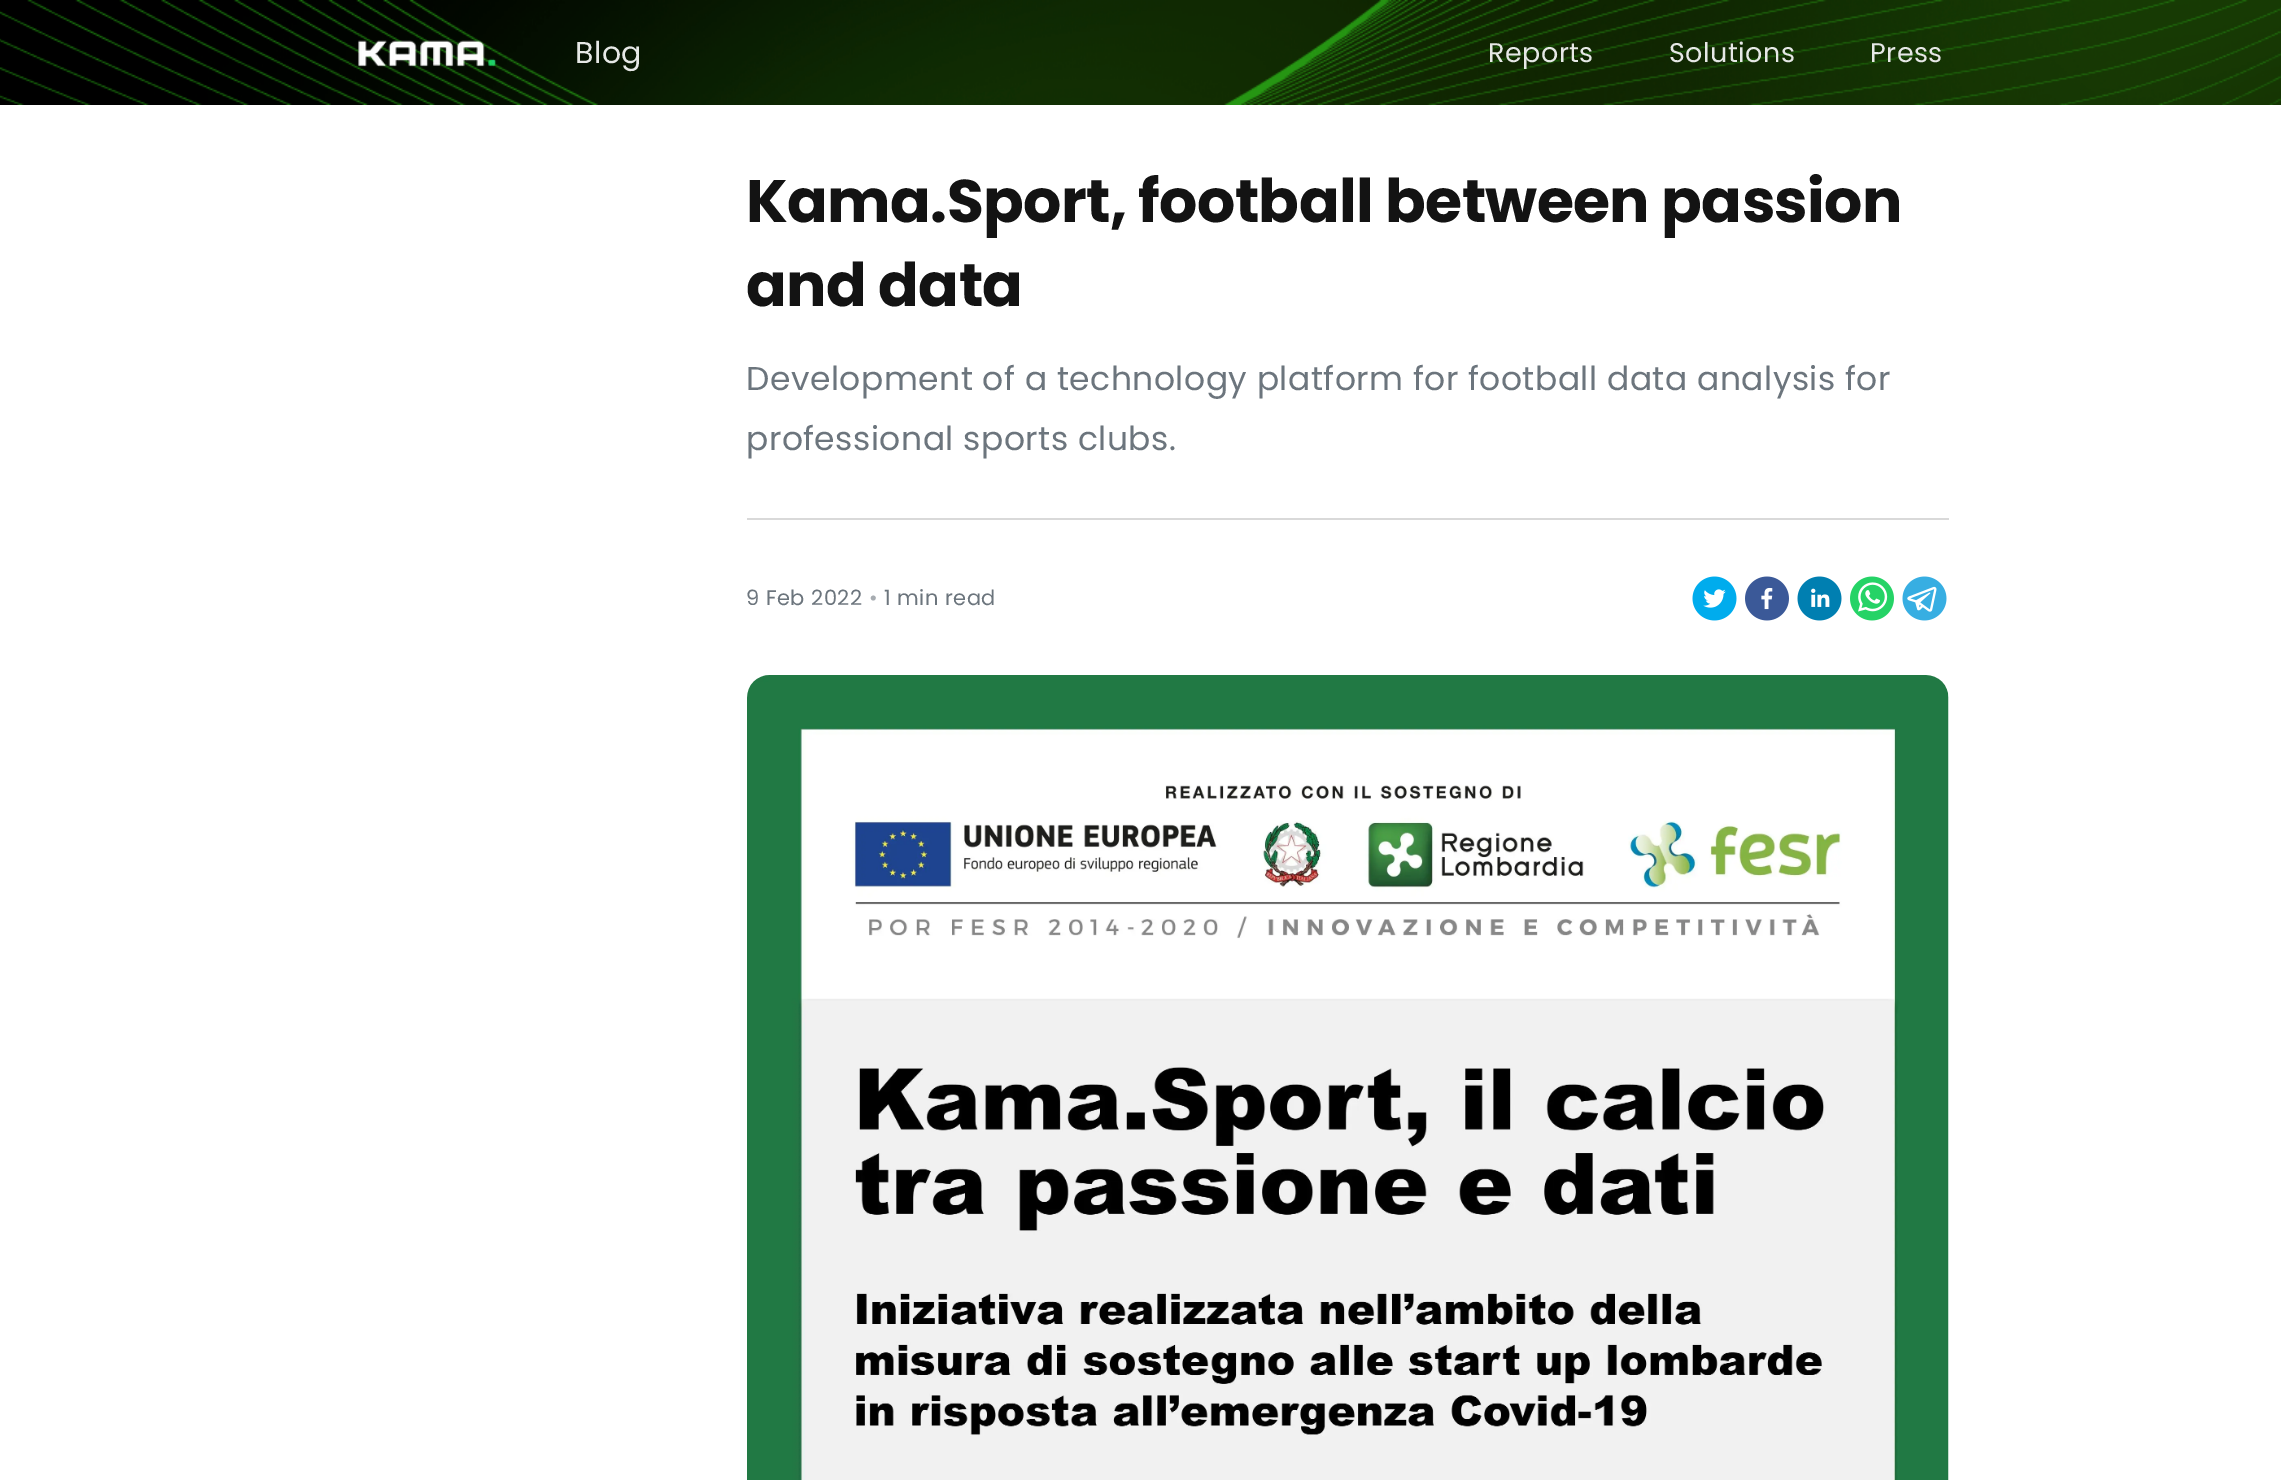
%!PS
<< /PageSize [2281 1480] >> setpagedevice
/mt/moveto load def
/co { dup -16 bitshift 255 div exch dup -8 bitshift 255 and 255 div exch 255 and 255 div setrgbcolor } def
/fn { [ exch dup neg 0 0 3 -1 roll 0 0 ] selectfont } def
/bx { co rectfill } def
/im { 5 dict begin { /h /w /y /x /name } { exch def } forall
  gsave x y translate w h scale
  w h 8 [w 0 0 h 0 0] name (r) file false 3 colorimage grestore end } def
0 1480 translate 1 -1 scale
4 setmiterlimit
0 0 2281 1480 16#FFFFFF bx
(media/1.raw) 0 0 2281 105 im
(media/2.raw) 358 40 139 27 im
747 518 1202 2 16#D9D9D9 bx
(media/3.raw) 1692 576 45 45 im
(media/4.raw) 1745 576 44 45 im
(media/5.raw) 1797 576 45 45 im
(media/6.raw) 1850 576 44 45 im
(media/7.raw) 1902 576 45 45 im
(media/8.raw) 747 675 1202 805 im
/Poppins-Regular 30 fn
16#E6E8E6 co
575 63 mt .48 0 (Blog) ashow
/Poppins-Regular 27 fn
1488 62 mt .48 0 (Reports) ashow
1669 62 mt .48 0 (Solutions) ashow
1870 62 mt .48 0 (Press) ashow
/Poppins-Bold 60 fn
16#131313 co
746 222 mt -.6 0 (Kama.Sport, football between passion) ashow
746 306 mt -.6 0 (and data) ashow
/Poppins-Regular 33 fn
16#6C757D co
746 390 mt .48 0 (Development of a technology platform for football data analysis for) ashow
746 450 mt .48 0 (professional sports clubs.) ashow
/Poppins-Regular 21 fn
746 605 mt .48 0 (9 Feb 2022) ashow
16#A7ACB1 co
869 605 mt .48 0 (•) ashow
16#6C757D co
884 605 mt .48 0 (1 min read) ashow
showpage
